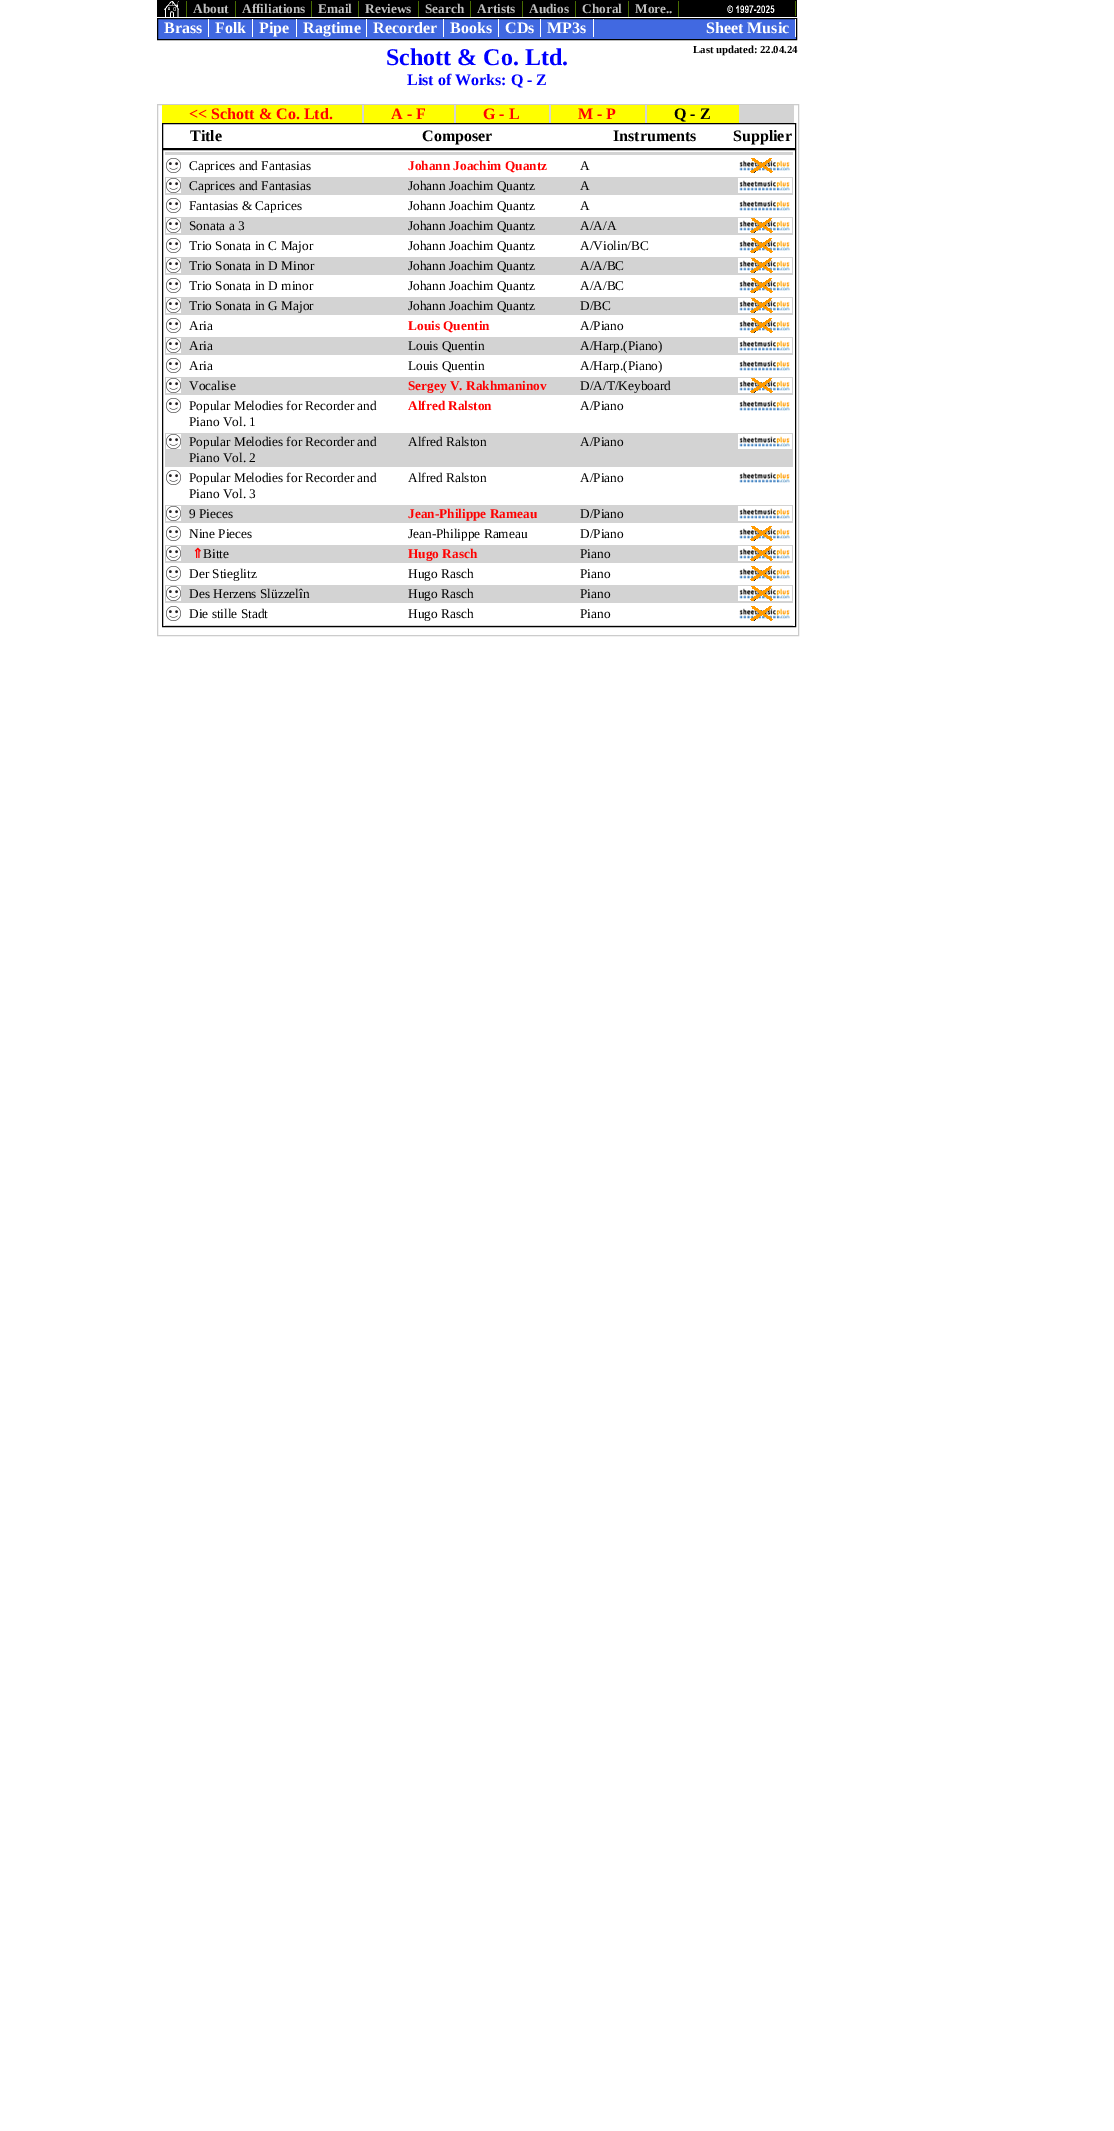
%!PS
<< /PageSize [1114 2131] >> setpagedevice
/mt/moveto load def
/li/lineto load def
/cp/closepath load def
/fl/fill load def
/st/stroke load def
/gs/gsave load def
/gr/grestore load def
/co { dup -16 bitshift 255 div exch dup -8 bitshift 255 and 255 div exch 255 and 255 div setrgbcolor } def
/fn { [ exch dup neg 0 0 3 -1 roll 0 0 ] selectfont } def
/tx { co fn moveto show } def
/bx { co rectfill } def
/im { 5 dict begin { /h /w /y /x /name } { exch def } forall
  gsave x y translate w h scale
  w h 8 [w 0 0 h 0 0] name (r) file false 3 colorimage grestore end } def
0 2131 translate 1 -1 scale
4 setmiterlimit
0 0 1114 2131 16#FFFFFF bx
157 0 640 17 16#000000 bx
186 1 1 16 16#486B02 bx
(media/1.raw) 164 1 15 16 im
235 1 1 16 16#486B02 bx
311 1 1 16 16#486B02 bx
358 1 1 16 16#486B02 bx
418 1 1 16 16#486B02 bx
470 1 1 16 16#486B02 bx
522 1 1 16 16#486B02 bx
575 1 1 16 16#486B02 bx
628 1 1 16 16#486B02 bx
678 1 1 16 16#486B02 bx
795 1 1 15 16#486B02 bx
(media/2.raw) 727 5 48 8 im
16#4169E1 co
157.5 18.5 mt 796.5 18.5 li 796.5 39.5 li 157.5 39.5 li cp gs fl gr
16#000000 co
st
208 19 1 18 16#FFFFFF bx
252 19 1 18 16#FFFFFF bx
296 19 1 18 16#FFFFFF bx
366 19 1 18 16#FFFFFF bx
443 19 1 18 16#FFFFFF bx
498 19 1 18 16#FFFFFF bx
540 19 1 18 16#FFFFFF bx
593 19 1 18 16#FFFFFF bx
795 19 1 18 16#FFFFFF bx
16#CCCCCC co
157.5 104.5 641 531 rectstroke
739 105 55 18 16#D3D3D3 bx
162 105 200 18 16#FFFF00 bx
362 105 2 18 16#D3D3D3 bx
364 105 90 18 16#FFFF00 bx
454 105 2 18 16#D3D3D3 bx
456 105 93 18 16#FFFF00 bx
549 105 2 18 16#D3D3D3 bx
551 105 94 18 16#FFFF00 bx
645 105 2 18 16#D3D3D3 bx
647 105 92 18 16#FFFF00 bx
16#000000 co
162.5 123.5 633 25 rectstroke
162.5 149.5 633 477 rectstroke
165 152 628 3 16#D3D3D3 bx
(media/3.raw) 166 158 15 15 im
(media/4.raw) 739 158 51 15 im
165 177 628 18 16#D3D3D3 bx
(media/3.raw) 166 178 15 15 im
(media/5.raw) 738 178 54 15 im
(media/3.raw) 166 198 15 15 im
(media/6.raw) 739 200 51 11 im
165 217 628 18 16#D3D3D3 bx
(media/3.raw) 166 218 15 15 im
(media/7.raw) 738 218 54 15 im
(media/3.raw) 166 238 15 15 im
(media/4.raw) 739 238 51 15 im
165 257 628 18 16#D3D3D3 bx
(media/3.raw) 166 258 15 15 im
(media/7.raw) 738 258 54 15 im
(media/3.raw) 166 278 15 15 im
(media/4.raw) 739 278 51 15 im
165 297 628 18 16#D3D3D3 bx
(media/3.raw) 166 298 15 15 im
(media/7.raw) 738 298 54 15 im
(media/3.raw) 166 318 15 15 im
(media/4.raw) 739 318 51 15 im
165 337 628 18 16#D3D3D3 bx
(media/3.raw) 166 338 15 15 im
(media/5.raw) 738 338 54 15 im
(media/3.raw) 166 358 15 15 im
(media/6.raw) 739 360 51 11 im
165 377 628 18 16#D3D3D3 bx
(media/3.raw) 166 378 15 15 im
(media/7.raw) 738 378 54 15 im
(media/3.raw) 166 398 15 15 im
(media/6.raw) 739 400 51 11 im
165 433 628 34 16#D3D3D3 bx
(media/3.raw) 166 434 15 15 im
(media/5.raw) 738 434 54 15 im
(media/3.raw) 166 470 15 15 im
(media/6.raw) 739 472 51 11 im
165 505 628 18 16#D3D3D3 bx
(media/3.raw) 166 506 15 15 im
(media/5.raw) 738 506 54 15 im
(media/3.raw) 166 526 15 15 im
(media/4.raw) 739 526 51 15 im
165 545 628 18 16#D3D3D3 bx
(media/3.raw) 166 546 15 15 im
(media/7.raw) 738 546 54 15 im
(media/3.raw) 166 566 15 15 im
(media/4.raw) 739 566 51 15 im
165 585 628 18 16#D3D3D3 bx
(media/3.raw) 166 586 15 15 im
(media/7.raw) 738 586 54 15 im
(media/3.raw) 166 606 15 15 im
(media/4.raw) 739 606 51 15 im
165 625 628 1 16#D3D3D3 bx
(About) 193 13 /LiberationSerif-Bold 13.3 16#C0C0C0 tx
(Affiliations) 242 13 /LiberationSerif-Bold 13.3 16#C0C0C0 tx
(Email) 318 13 /LiberationSerif-Bold 13.3 16#C0C0C0 tx
(Reviews) 365 13 /LiberationSerif-Bold 13.3 16#C0C0C0 tx
(Search) 425 13 /LiberationSerif-Bold 13.3 16#C0C0C0 tx
(Artists) 477 13 /LiberationSerif-Bold 13.3 16#C0C0C0 tx
(Audios) 529 13 /LiberationSerif-Bold 13.3 16#C0C0C0 tx
(Choral) 582 13 /LiberationSerif-Bold 13.3 16#C0C0C0 tx
(More..) 635 13 /LiberationSerif-Bold 13.3 16#C0C0C0 tx
(Brass) 164 33 /LiberationSerif-Bold 16 16#FFFFFF tx
(Folk) 215 33 /LiberationSerif-Bold 16 16#FFFFFF tx
(Pipe) 259 33 /LiberationSerif-Bold 16 16#FFFFFF tx
(Ragtime) 303 33 /LiberationSerif-Bold 16 16#FFFFFF tx
(Recorder) 373 33 /LiberationSerif-Bold 16 16#FFFFFF tx
(Books) 450 33 /LiberationSerif-Bold 16 16#FFFFFF tx
(CDs) 505 33 /LiberationSerif-Bold 16 16#FFFFFF tx
(MP3s) 547 33 /LiberationSerif-Bold 16 16#FFFFFF tx
(Sheet Music) 706 33 /LiberationSerif-Bold 16 16#FFFFFF tx
(Schott & Co. Ltd.) 386 65 /LiberationSerif-Bold 24 16#0000FF tx
(List of Works: Q - Z) 407 85 /LiberationSerif-Bold 16 16#0000FF tx
(Last updated: 22.04.24) 693 53 /LiberationSerif-Bold 10.75 16#000000 tx
(<< Schott & Co. Ltd.) 189 119 /LiberationSerif-Bold 16 16#FF0000 tx
(A - F) 391 119 /LiberationSerif-Bold 16 16#FF0000 tx
(G - L) 483 119 /LiberationSerif-Bold 16 16#FF0000 tx
(M - P) 578 119 /LiberationSerif-Bold 16 16#FF0000 tx
(Q - Z) 674 119 /LiberationSerif-Bold 16 16#000000 tx
(Title) 190 141 /LiberationSerif-Bold 16 16#000000 tx
(Composer) 422 141 /LiberationSerif-Bold 16 16#000000 tx
(Instruments) 613 141 /LiberationSerif-Bold 16 16#000000 tx
(Supplier) 733 141 /LiberationSerif-Bold 16 16#000000 tx
(Caprices and Fantasias) 189 170 /LiberationSerif-Regular 13.3 16#000000 tx
(Johann Joachim Quantz) 408 170 /LiberationSerif-Bold 13.3 16#FF0000 tx
(A) 580 170 /LiberationSerif-Regular 13.3 16#000000 tx
(Caprices and Fantasias) 189 190 /LiberationSerif-Regular 13.3 16#000000 tx
(Johann Joachim Quantz) 408 190 /LiberationSerif-Regular 13.3 16#000000 tx
(A) 580 190 /LiberationSerif-Regular 13.3 16#000000 tx
(Fantasias & Caprices) 189 210 /LiberationSerif-Regular 13.3 16#000000 tx
(Johann Joachim Quantz) 408 210 /LiberationSerif-Regular 13.3 16#000000 tx
(A) 580 210 /LiberationSerif-Regular 13.3 16#000000 tx
(Sonata a 3) 189 230 /LiberationSerif-Regular 13.3 16#000000 tx
(Johann Joachim Quantz) 408 230 /LiberationSerif-Regular 13.3 16#000000 tx
(A/A/A) 580 230 /LiberationSerif-Regular 13.3 16#000000 tx
(Trio Sonata in C Major) 189 250 /LiberationSerif-Regular 13.3 16#000000 tx
(Johann Joachim Quantz) 408 250 /LiberationSerif-Regular 13.3 16#000000 tx
(A/Violin/BC) 580 250 /LiberationSerif-Regular 13.3 16#000000 tx
(Trio Sonata in D Minor) 189 270 /LiberationSerif-Regular 13.3 16#000000 tx
(Johann Joachim Quantz) 408 270 /LiberationSerif-Regular 13.3 16#000000 tx
(A/A/BC) 580 270 /LiberationSerif-Regular 13.3 16#000000 tx
(Trio Sonata in D minor) 189 290 /LiberationSerif-Regular 13.3 16#000000 tx
(Johann Joachim Quantz) 408 290 /LiberationSerif-Regular 13.3 16#000000 tx
(A/A/BC) 580 290 /LiberationSerif-Regular 13.3 16#000000 tx
(Trio Sonata in G Major) 189 310 /LiberationSerif-Regular 13.3 16#000000 tx
(Johann Joachim Quantz) 408 310 /LiberationSerif-Regular 13.3 16#000000 tx
(D/BC) 580 310 /LiberationSerif-Regular 13.3 16#000000 tx
(Aria) 189 330 /LiberationSerif-Regular 13.3 16#000000 tx
(Louis Quentin) 408 330 /LiberationSerif-Bold 13.3 16#FF0000 tx
(A/Piano) 580 330 /LiberationSerif-Regular 13.3 16#000000 tx
(Aria) 189 350 /LiberationSerif-Regular 13.3 16#000000 tx
(Louis Quentin) 408 350 /LiberationSerif-Regular 13.3 16#000000 tx
(A/Harp.\(Piano\)) 580 350 /LiberationSerif-Regular 13.3 16#000000 tx
(Aria) 189 370 /LiberationSerif-Regular 13.3 16#000000 tx
(Louis Quentin) 408 370 /LiberationSerif-Regular 13.3 16#000000 tx
(A/Harp.\(Piano\)) 580 370 /LiberationSerif-Regular 13.3 16#000000 tx
(Vocalise) 189 390 /LiberationSerif-Regular 13.3 16#000000 tx
(Sergey V. Rakhmaninov) 408 390 /LiberationSerif-Bold 13.3 16#FF0000 tx
(D/A/T/Keyboard) 580 390 /LiberationSerif-Regular 13.3 16#000000 tx
(Popular Melodies for Recorder and) 189 410 /LiberationSerif-Regular 13.3 16#000000 tx
(Piano Vol. 1) 189 426 /LiberationSerif-Regular 13.3 16#000000 tx
(Alfred Ralston) 408 410 /LiberationSerif-Bold 13.3 16#FF0000 tx
(A/Piano) 580 410 /LiberationSerif-Regular 13.3 16#000000 tx
(Popular Melodies for Recorder and) 189 446 /LiberationSerif-Regular 13.3 16#000000 tx
(Piano Vol. 2) 189 462 /LiberationSerif-Regular 13.3 16#000000 tx
(Alfred Ralston) 408 446 /LiberationSerif-Regular 13.3 16#000000 tx
(A/Piano) 580 446 /LiberationSerif-Regular 13.3 16#000000 tx
(Popular Melodies for Recorder and) 189 482 /LiberationSerif-Regular 13.3 16#000000 tx
(Piano Vol. 3) 189 498 /LiberationSerif-Regular 13.3 16#000000 tx
(Alfred Ralston) 408 482 /LiberationSerif-Regular 13.3 16#000000 tx
(A/Piano) 580 482 /LiberationSerif-Regular 13.3 16#000000 tx
(9 Pieces) 189 518 /LiberationSerif-Regular 13.3 16#000000 tx
(Jean-Philippe Rameau) 408 518 /LiberationSerif-Bold 13.3 16#FF0000 tx
(D/Piano) 580 518 /LiberationSerif-Regular 13.3 16#000000 tx
(Nine Pieces) 189 538 /LiberationSerif-Regular 13.3 16#000000 tx
(Jean-Philippe Rameau) 408 538 /LiberationSerif-Regular 13.3 16#000000 tx
(D/Piano) 580 538 /LiberationSerif-Regular 13.3 16#000000 tx
(⇑) 192 558 /DejaVuSans-Bold 13.3 16#FF0000 tx
(Bitte) 203 558 /LiberationSerif-Regular 13.3 16#000000 tx
(Hugo Rasch) 408 558 /LiberationSerif-Bold 13.3 16#FF0000 tx
(Piano) 580 558 /LiberationSerif-Regular 13.3 16#000000 tx
(Der Stieglitz) 189 578 /LiberationSerif-Regular 13.3 16#000000 tx
(Hugo Rasch) 408 578 /LiberationSerif-Regular 13.3 16#000000 tx
(Piano) 580 578 /LiberationSerif-Regular 13.3 16#000000 tx
(Des Herzens Slüzzelîn) 189 598 /LiberationSerif-Regular 13.3 16#000000 tx
(Hugo Rasch) 408 598 /LiberationSerif-Regular 13.3 16#000000 tx
(Piano) 580 598 /LiberationSerif-Regular 13.3 16#000000 tx
(Die stille Stadt) 189 618 /LiberationSerif-Regular 13.3 16#000000 tx
(Hugo Rasch) 408 618 /LiberationSerif-Regular 13.3 16#000000 tx
(Piano) 580 618 /LiberationSerif-Regular 13.3 16#000000 tx
showpage
